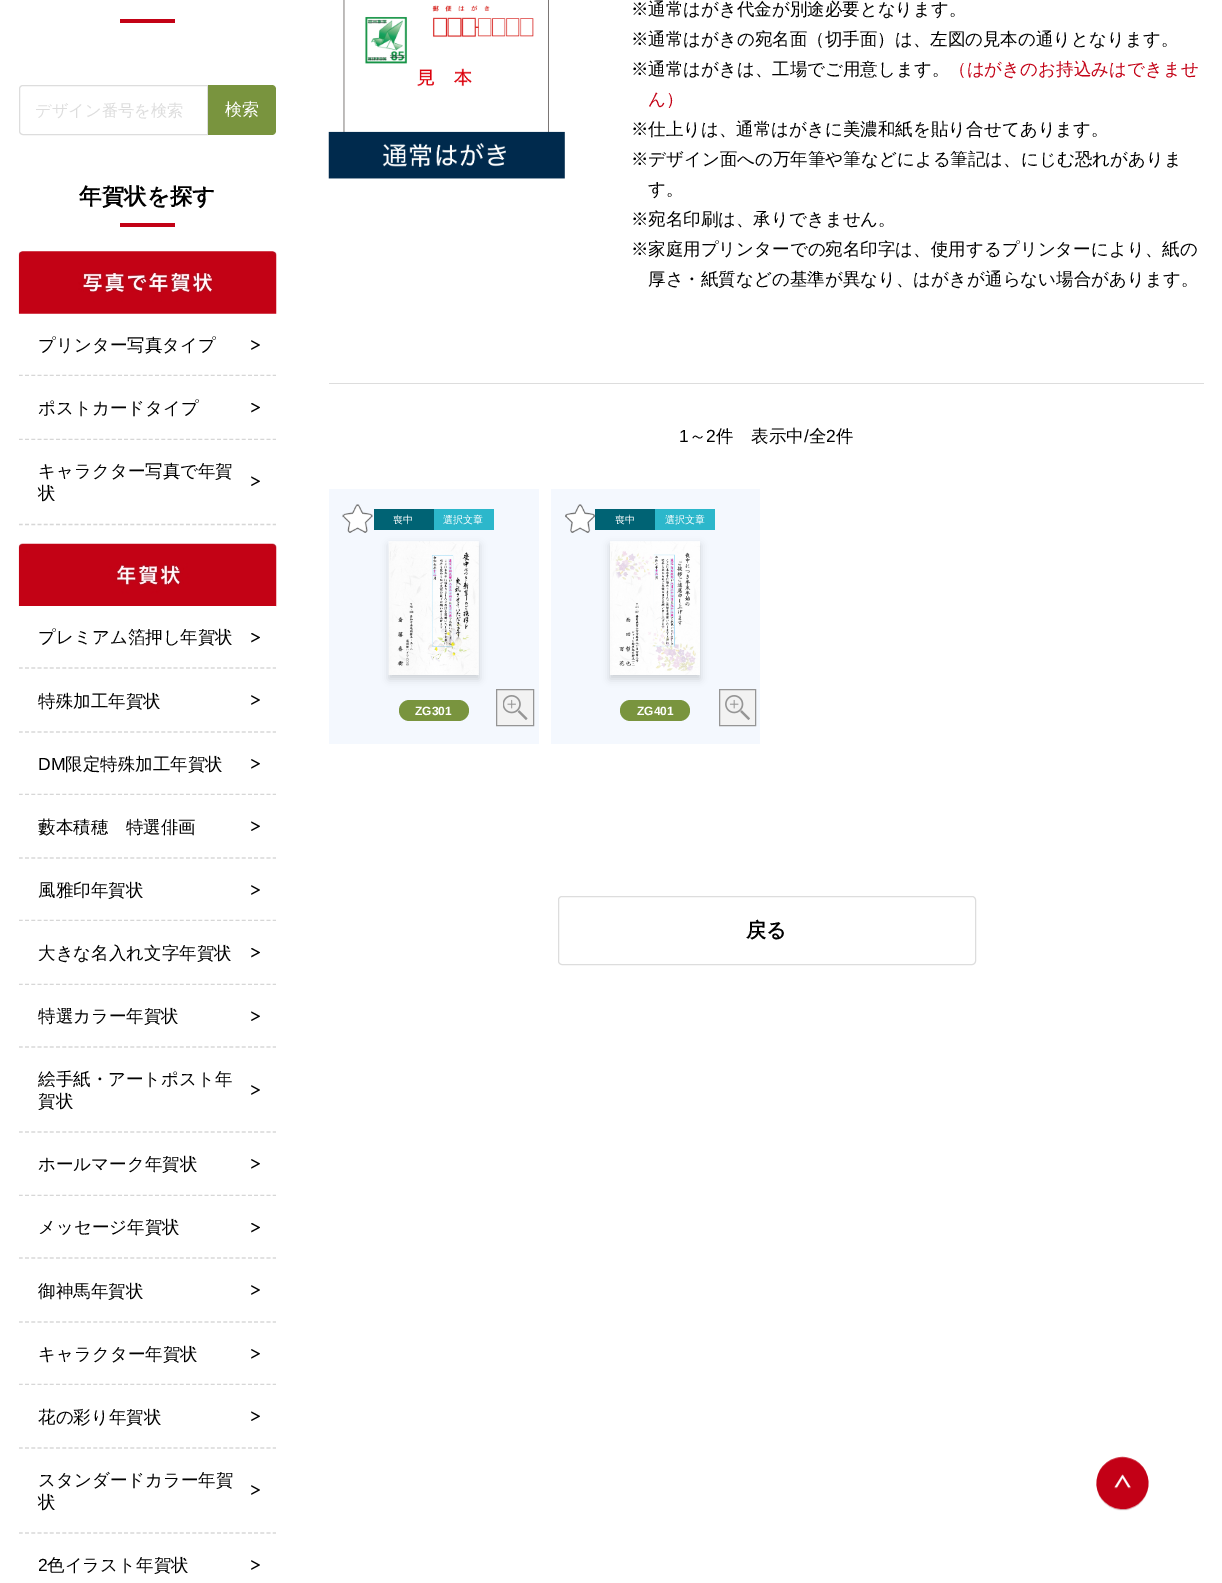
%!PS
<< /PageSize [1222 1583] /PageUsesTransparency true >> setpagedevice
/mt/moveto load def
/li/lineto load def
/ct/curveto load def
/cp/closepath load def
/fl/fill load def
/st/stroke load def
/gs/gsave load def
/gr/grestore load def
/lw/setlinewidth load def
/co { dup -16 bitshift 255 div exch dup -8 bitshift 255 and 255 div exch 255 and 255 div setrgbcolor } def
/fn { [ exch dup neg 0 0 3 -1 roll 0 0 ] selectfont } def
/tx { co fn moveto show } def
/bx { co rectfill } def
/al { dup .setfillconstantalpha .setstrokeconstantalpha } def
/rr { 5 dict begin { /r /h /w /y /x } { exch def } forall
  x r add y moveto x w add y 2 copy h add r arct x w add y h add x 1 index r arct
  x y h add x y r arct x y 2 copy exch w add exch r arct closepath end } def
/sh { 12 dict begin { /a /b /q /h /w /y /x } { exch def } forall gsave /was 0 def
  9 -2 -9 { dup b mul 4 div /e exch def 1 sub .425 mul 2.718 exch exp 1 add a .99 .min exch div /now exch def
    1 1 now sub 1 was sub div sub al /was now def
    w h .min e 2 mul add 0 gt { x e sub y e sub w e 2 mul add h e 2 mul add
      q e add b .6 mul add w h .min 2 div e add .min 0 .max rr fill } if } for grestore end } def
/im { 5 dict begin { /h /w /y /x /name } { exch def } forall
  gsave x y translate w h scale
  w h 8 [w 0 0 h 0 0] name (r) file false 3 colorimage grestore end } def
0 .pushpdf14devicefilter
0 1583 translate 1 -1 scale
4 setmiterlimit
0 0 1222 1583 16#FFFFFF bx
120 19 55 4 16#C30216 bx
16#DDDDDD co
23 85.5 mt 207.5 85.5 li 207.5 134.5 li 23 134.5 li 21 134.5 19.5 133 19.5 131 ct 19.5 89 li 19.5 87 21 85.5 23 85.5 ct cp st
16#79943E co
208 85 mt 272 85 li 274 85 276 87 276 89 ct 276 131 li 276 133 274 135 272 135 ct 208 135 li cp fl
120 223 55 4 16#C30216 bx
(media/1.raw) 18 251 259 63 im
16#D7D7D7 co
1.2 lw
[3.75 2.44] 0 setdash
19 375.5 mt 276 375.5 li st
(media/2.raw) 251 340 9 10 im
19 376 257 1 16#FFFFFF bx
16#D7D7D7 co
19 439.5 mt 276 439.5 li st
(media/3.raw) 251 403 9 10 im
19 440 257 1 16#FFFFFF bx
16#D7D7D7 co
19 524.5 mt 276 524.5 li st
(media/4.raw) 251 476 9 10 im
(media/5.raw) 18 543 259 64 im
19 606 257 1 16#FFFFFF bx
16#D7D7D7 co
19 668 mt 276 668 li st
(media/3.raw) 251 633 9 10 im
19 732 mt 276 732 li st
(media/2.raw) 251 695 9 10 im
19 794.5 mt 276 794.5 li st
(media/6.raw) 251 759 9 10 im
19 795 257 1 16#FFFFFF bx
16#D7D7D7 co
19 858 mt 276 858 li st
(media/4.raw) 251 821 9 10 im
19 920.5 mt 276 920.5 li st
(media/2.raw) 251 885 9 10 im
19 921 257 1 16#FFFFFF bx
16#D7D7D7 co
19 984.5 mt 276 984.5 li st
(media/3.raw) 251 948 9 10 im
19 985 257 1 16#FFFFFF bx
16#D7D7D7 co
19 1047 mt 276 1047 li st
(media/4.raw) 251 1011 9 10 im
19 1132 mt 276 1132 li st
(media/2.raw) 251 1085 9 10 im
19 1195.5 mt 276 1195.5 li st
(media/6.raw) 251 1159 9 10 im
19 1196 257 1 16#FFFFFF bx
16#D7D7D7 co
19 1258 mt 276 1258 li st
(media/3.raw) 251 1223 9 10 im
19 1322 mt 276 1322 li st
(media/2.raw) 251 1285 9 10 im
19 1384.5 mt 276 1384.5 li st
(media/6.raw) 251 1349 9 10 im
19 1385 257 1 16#FFFFFF bx
16#D7D7D7 co
19 1448 mt 276 1448 li st
(media/4.raw) 251 1411 9 10 im
19 1533 mt 276 1533 li st
(media/2.raw) 251 1485 9 10 im
(media/2.raw) 251 1560 9 10 im
(media/7.raw) 328 0 237 179 im
329 383 875 1 16#DDDDDD bx
329 489 210 255 16#F4F8FE bx
(media/8.raw) 342 504 31 29 im
374 509 60 21 16#006374 bx
434 509 60 21 16#2CB7CB bx
16#000000 co
389 545 90 134 0 4 .16 sh
(media/9.raw) 388 541 91 134 im
16#79943E co
399 700 70 21 10.5 rr fl
16#F2F2F2 co
496.5 689.5 mt 533.5 689.5 li 533.5 725.5 li 496.5 725.5 li cp gs fl gr
16#959595 co
1 lw
[] 0 setdash
st
(media/10.raw) 503 695 25 25 im
551 489 209 255 16#F4F8FE bx
(media/11.raw) 565 504 30 29 im
595 509 60 21 16#006374 bx
655 509 60 21 16#2CB7CB bx
16#000000 co
610 545 90 134 0 4 .16 sh
(media/12.raw) 610 541 90 134 im
16#79943E co
620 700 70 21 10.5 rr fl
16#F2F2F2 co
719.5 689.5 mt 755.5 689.5 li 755.5 725.5 li 719.5 725.5 li cp gs fl gr
16#959595 co
st
(media/13.raw) 725 695 25 25 im
16#DDDDDD co
558.5 896.5 417 68 3.5 rr st
(media/14.raw) 1096 1456 53 55 im
(デザイン番号を検索) 35 116 /WenQuanYiZenHei-Medium 16.25 16#DDDDDD tx
(検索) 225 115 /WenQuanYiZenHei-Medium 17 16#FFFFFF tx
(年賀状を探す) 79 204 /WenQuanYiZenHei-Bold 22.5 16#000000 tx
(プリンター写真タイプ) 38 351 /WenQuanYiZenHei-Medium 17.5 16#000000 tx
(ポストカードタイプ) 38 414 /WenQuanYiZenHei-Medium 17.5 16#000000 tx
(キャラクター写真で年賀) 38 477 /WenQuanYiZenHei-Medium 17.5 16#000000 tx
(状) 38 499 /WenQuanYiZenHei-Medium 17.5 16#000000 tx
(プレミアム箔押し年賀状) 38 643 /WenQuanYiZenHei-Medium 17.5 16#000000 tx
(特殊加工年賀状) 38 707 /WenQuanYiZenHei-Medium 17.5 16#000000 tx
(DM) 38 770 /LiberationSans-Regular 17.5 16#000000 tx
(限定特殊加工年賀状) 65 770 /WenQuanYiZenHei-Medium 17.5 16#000000 tx
(藪本積穂　特選俳画) 38 833 /WenQuanYiZenHei-Medium 17.5 16#000000 tx
(風雅印年賀状) 38 896 /WenQuanYiZenHei-Medium 17.5 16#000000 tx
(大きな名入れ文字年賀状) 38 959 /WenQuanYiZenHei-Medium 17.5 16#000000 tx
(特選カラー年賀状) 38 1022 /WenQuanYiZenHei-Medium 17.5 16#000000 tx
(絵手紙・アートポスト年) 38 1085 /WenQuanYiZenHei-Medium 17.5 16#000000 tx
(賀状) 38 1107 /WenQuanYiZenHei-Medium 17.5 16#000000 tx
(ホールマーク年賀状) 38 1170 /WenQuanYiZenHei-Medium 17.5 16#000000 tx
(メッセージ年賀状) 38 1233 /WenQuanYiZenHei-Medium 17.5 16#000000 tx
(御神馬年賀状) 38 1297 /WenQuanYiZenHei-Medium 17.5 16#000000 tx
(キャラクター年賀状) 38 1360 /WenQuanYiZenHei-Medium 17.5 16#000000 tx
(花の彩り年賀状) 38 1423 /WenQuanYiZenHei-Medium 17.5 16#000000 tx
(スタンダードカラー年賀) 38 1486 /WenQuanYiZenHei-Medium 17.5 16#000000 tx
(状) 38 1508 /WenQuanYiZenHei-Medium 17.5 16#000000 tx
(2) 38 1571 /LiberationSans-Regular 17.5 16#000000 tx
(色イラスト年賀状) 47 1571 /WenQuanYiZenHei-Medium 17.5 16#000000 tx
(※) 631 15 /WenQuanYiZenHei-Medium 17.5 16#000000 tx
(通常はがき代金が別途必要となります。) 648 15 /WenQuanYiZenHei-Medium 17.5 16#000000 tx
(※) 631 45 /WenQuanYiZenHei-Medium 17.5 16#000000 tx
(通常はがきの宛名面（切手面）は、左図の見本の通りとなります。) 648 45 /WenQuanYiZenHei-Medium 17.5 16#000000 tx
(※) 631 75 /WenQuanYiZenHei-Medium 17.5 16#000000 tx
(通常はがきは、工場でご用意します。) 648 75 /WenQuanYiZenHei-Medium 17.5 16#000000 tx
(（はがきのお持込みはできませ) 949 75 /WenQuanYiZenHei-Medium 17.5 16#C30216 tx
(ん）) 648 105 /WenQuanYiZenHei-Medium 17.5 16#C30216 tx
(※) 631 135 /WenQuanYiZenHei-Medium 17.5 16#000000 tx
(仕上りは、通常はがきに美濃和紙を貼り合せてあります。) 648 135 /WenQuanYiZenHei-Medium 17.5 16#000000 tx
(※) 631 165 /WenQuanYiZenHei-Medium 17.5 16#000000 tx
(デザイン面への万年筆や筆などによる筆記は、にじむ恐れがありま) 648 165 /WenQuanYiZenHei-Medium 17.5 16#000000 tx
(す。) 648 195 /WenQuanYiZenHei-Medium 17.5 16#000000 tx
(※) 631 225 /WenQuanYiZenHei-Medium 17.5 16#000000 tx
(宛名印刷は、承りできません。) 648 225 /WenQuanYiZenHei-Medium 17.5 16#000000 tx
(※) 631 255 /WenQuanYiZenHei-Medium 17.5 16#000000 tx
(家庭用プリンターでの宛名印字は、使用するプリンターにより、紙の) 648 255 /WenQuanYiZenHei-Medium 17.5 16#000000 tx
(厚さ・紙質などの基準が異なり、はがきが通らない場合があります。) 648 285 /WenQuanYiZenHei-Medium 17.5 16#000000 tx
(1) 679 442 /LiberationSans-Regular 17.5 16#000000 tx
(～) 689 442 /WenQuanYiZenHei-Medium 17.5 16#000000 tx
(2) 706 442 /LiberationSans-Regular 17.5 16#000000 tx
(件　表示中) 716 442 /WenQuanYiZenHei-Medium 17.5 16#000000 tx
(/) 804 442 /LiberationSans-Regular 17.5 16#000000 tx
(全) 809 442 /WenQuanYiZenHei-Medium 17.5 16#000000 tx
(2) 826 442 /LiberationSans-Regular 17.5 16#000000 tx
(件) 836 442 /WenQuanYiZenHei-Medium 17.5 16#000000 tx
(喪中) 393 523 /WenQuanYiZenHei-Medium 10 16#FFFFFF tx
(選択文章) 443 523 /WenQuanYiZenHei-Medium 10 16#FFFFFF tx
(ZG301) 415 715 /LiberationSans-Bold 12 16#FFFFFF tx
(喪中) 615 523 /WenQuanYiZenHei-Medium 10 16#FFFFFF tx
(選択文章) 665 523 /WenQuanYiZenHei-Medium 10 16#FFFFFF tx
(ZG401) 637 715 /LiberationSans-Bold 12 16#FFFFFF tx
(戻る) 746 937 /WenQuanYiZenHei-Bold 20 16#000000 tx
.poppdf14devicefilter showpage
